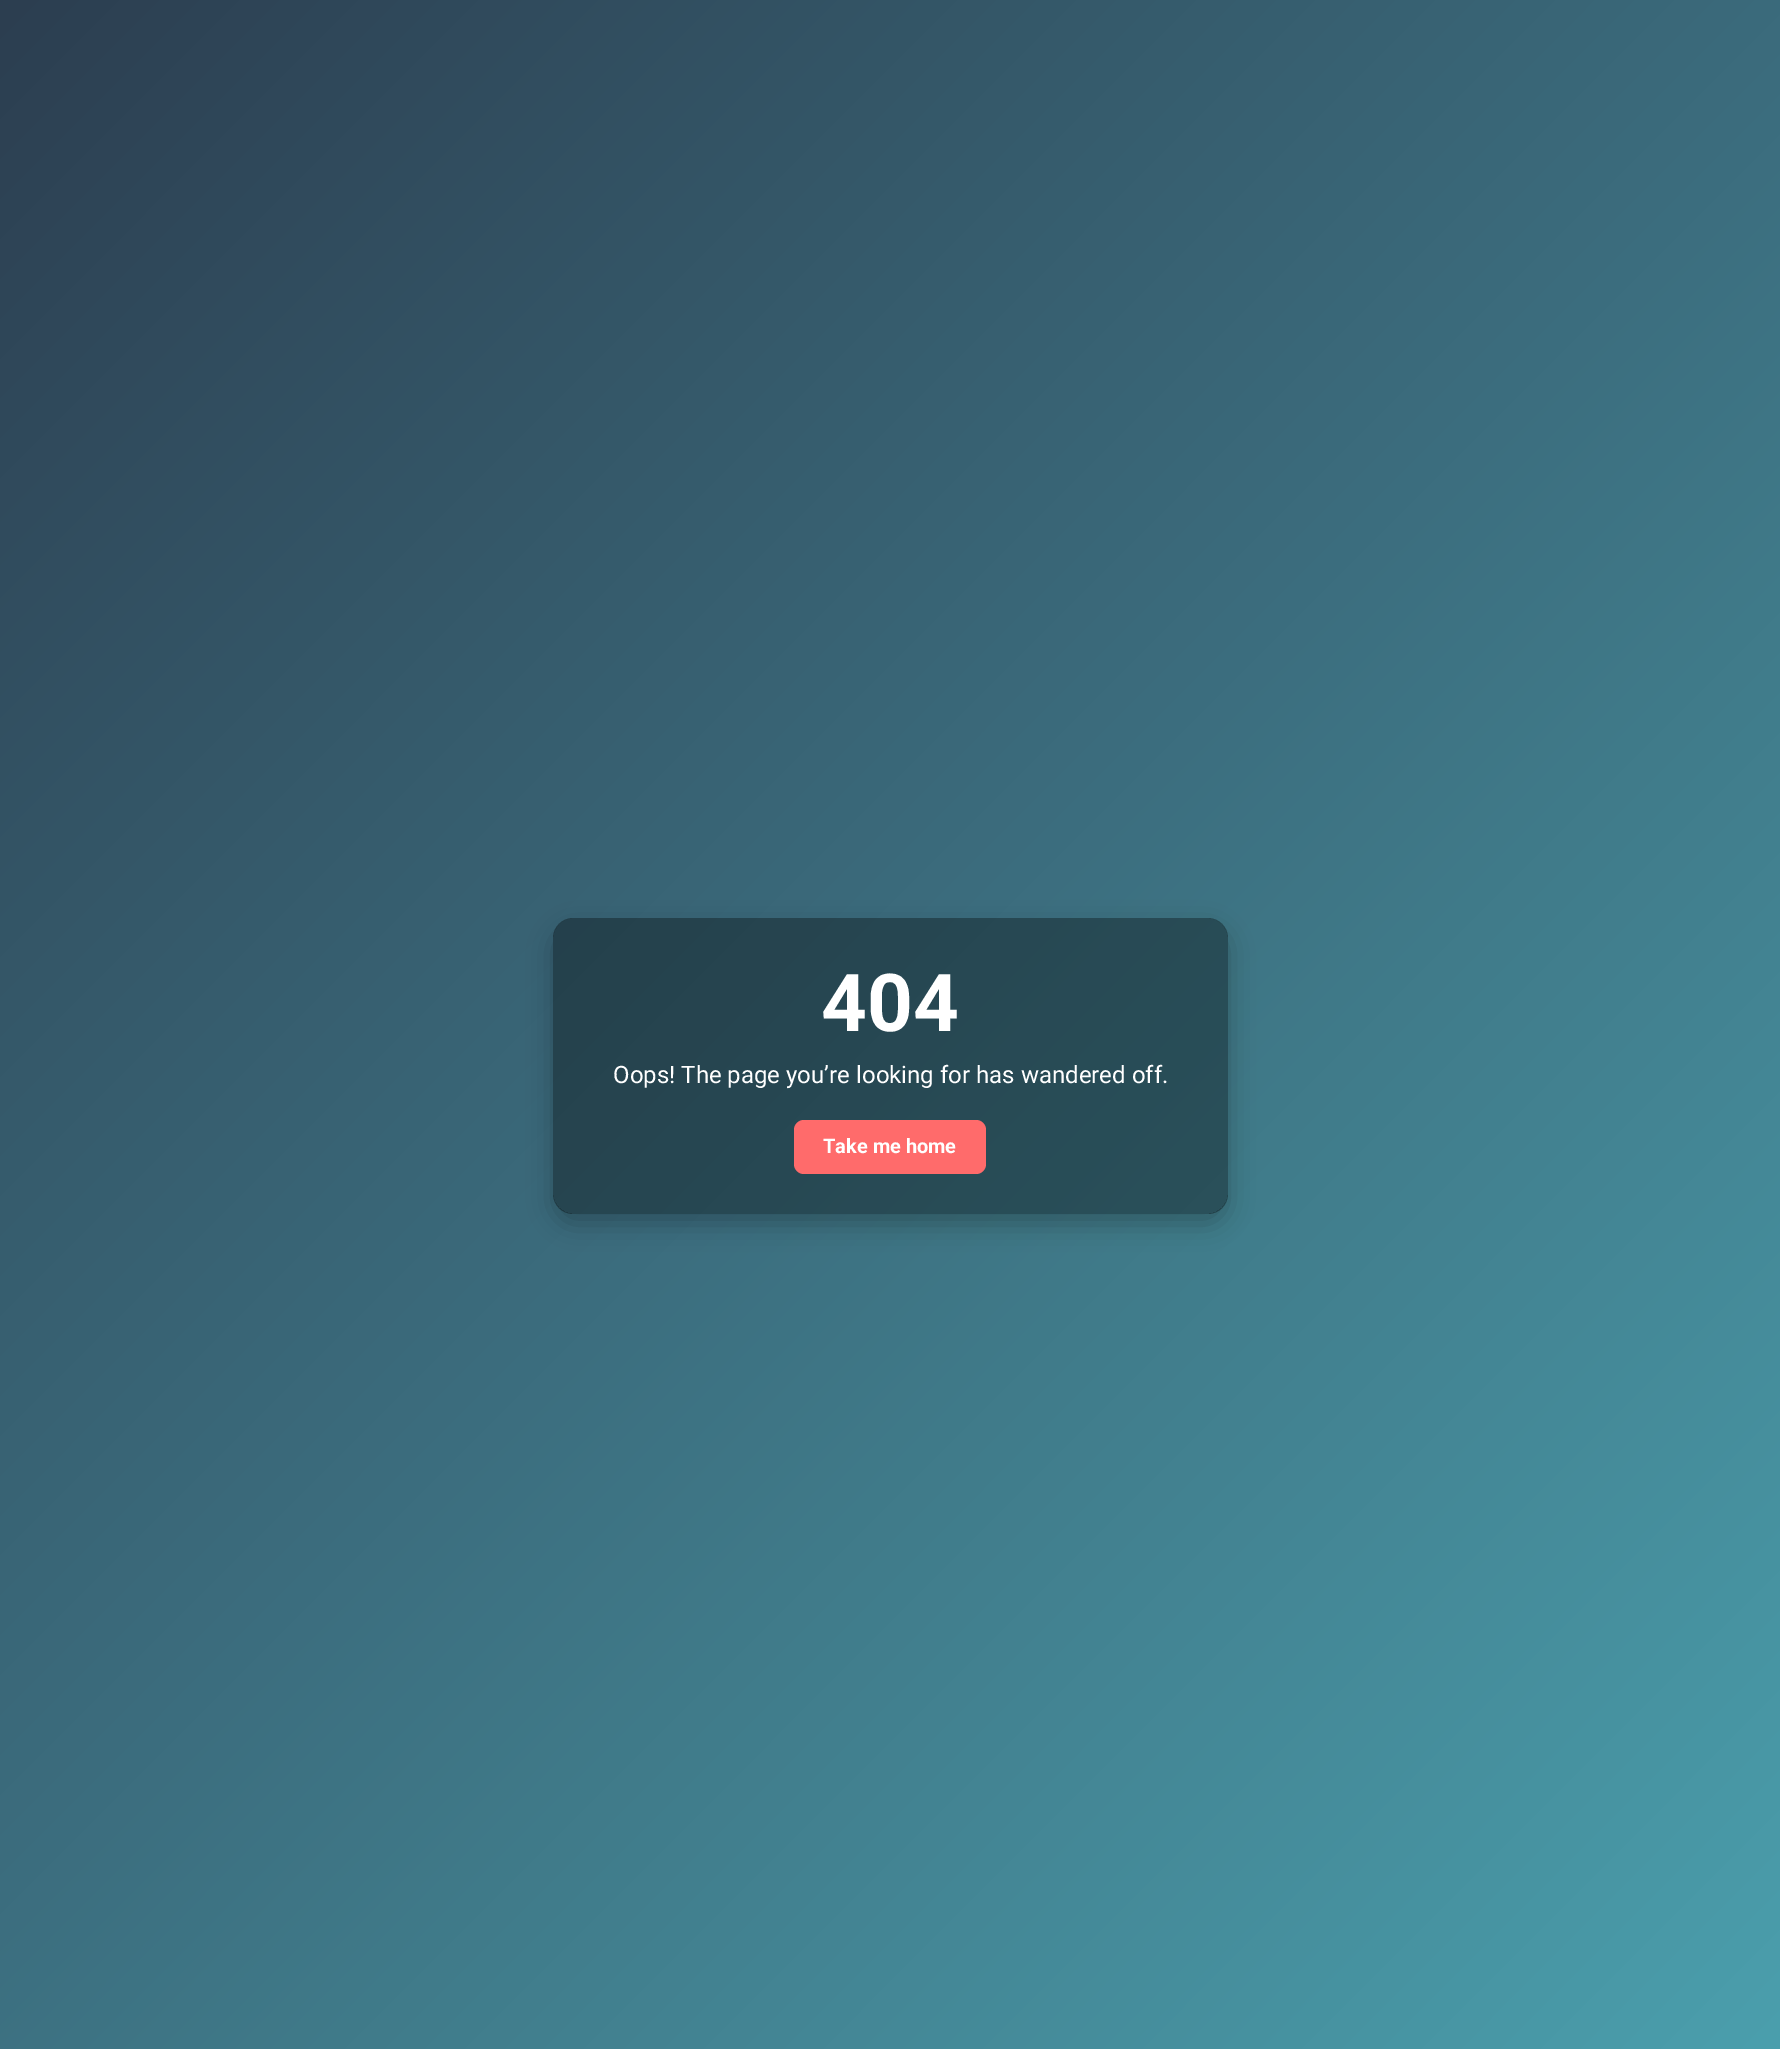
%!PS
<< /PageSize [1780 2049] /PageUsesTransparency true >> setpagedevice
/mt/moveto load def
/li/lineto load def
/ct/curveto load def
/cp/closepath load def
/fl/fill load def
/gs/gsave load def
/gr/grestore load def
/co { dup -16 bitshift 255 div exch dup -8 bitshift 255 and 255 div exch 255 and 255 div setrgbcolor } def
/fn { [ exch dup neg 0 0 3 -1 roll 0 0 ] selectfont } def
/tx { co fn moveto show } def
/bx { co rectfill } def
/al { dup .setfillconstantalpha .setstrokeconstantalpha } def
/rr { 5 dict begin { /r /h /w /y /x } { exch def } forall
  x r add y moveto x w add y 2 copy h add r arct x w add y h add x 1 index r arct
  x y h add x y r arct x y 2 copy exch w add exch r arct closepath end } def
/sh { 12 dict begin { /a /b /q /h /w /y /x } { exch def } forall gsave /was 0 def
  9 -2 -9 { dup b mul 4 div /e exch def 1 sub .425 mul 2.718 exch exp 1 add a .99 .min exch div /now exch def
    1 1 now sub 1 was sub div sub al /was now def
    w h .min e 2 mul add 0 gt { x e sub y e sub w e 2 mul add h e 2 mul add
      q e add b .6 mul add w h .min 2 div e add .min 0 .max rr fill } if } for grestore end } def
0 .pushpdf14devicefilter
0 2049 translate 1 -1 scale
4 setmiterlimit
0 0 1780 2049 16#FFFFFF bx
gs 0 0 mt 1780 0 li 1780 2049 li 0 2049 li cp clip newpath
<< /ShadingType 2 /ColorSpace /DeviceRGB /Coords [-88 88 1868 2043] /Extend [true true] /Function << /FunctionType 2 /Domain [0 1] /C0 [.173 .243 .314] /C1 [.298 .631 .686] /N 1 >> >> shfill gr
gs
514 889 mt 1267 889 li 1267 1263 li 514 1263 li cp 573 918 mt 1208 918 li 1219 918 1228 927 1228 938 ct 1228 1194 li 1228 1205 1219 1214 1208 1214 ct 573 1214 li 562 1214 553 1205 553 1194 ct 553 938 li 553 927 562 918 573 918 ct cp eoclip newpath
16#000000 co
553 928 675 296 20 12.5 .25 sh
gr
0.35 al
16#000000 co
553 918 675 296 20 rr fl
1 al
16#FF6B6B co
794 1120 192 54 10 rr fl
(404) 821 1031 /Roboto-Bold 80 16#FFFFFF tx
(Oops! The page you’re looking for has wandered off.) 613 1083 /Roboto-Regular 24 16#FFFFFF tx
(Take me home) 823 1153 /Roboto-Bold 20 16#FFFFFF tx
.poppdf14devicefilter showpage
